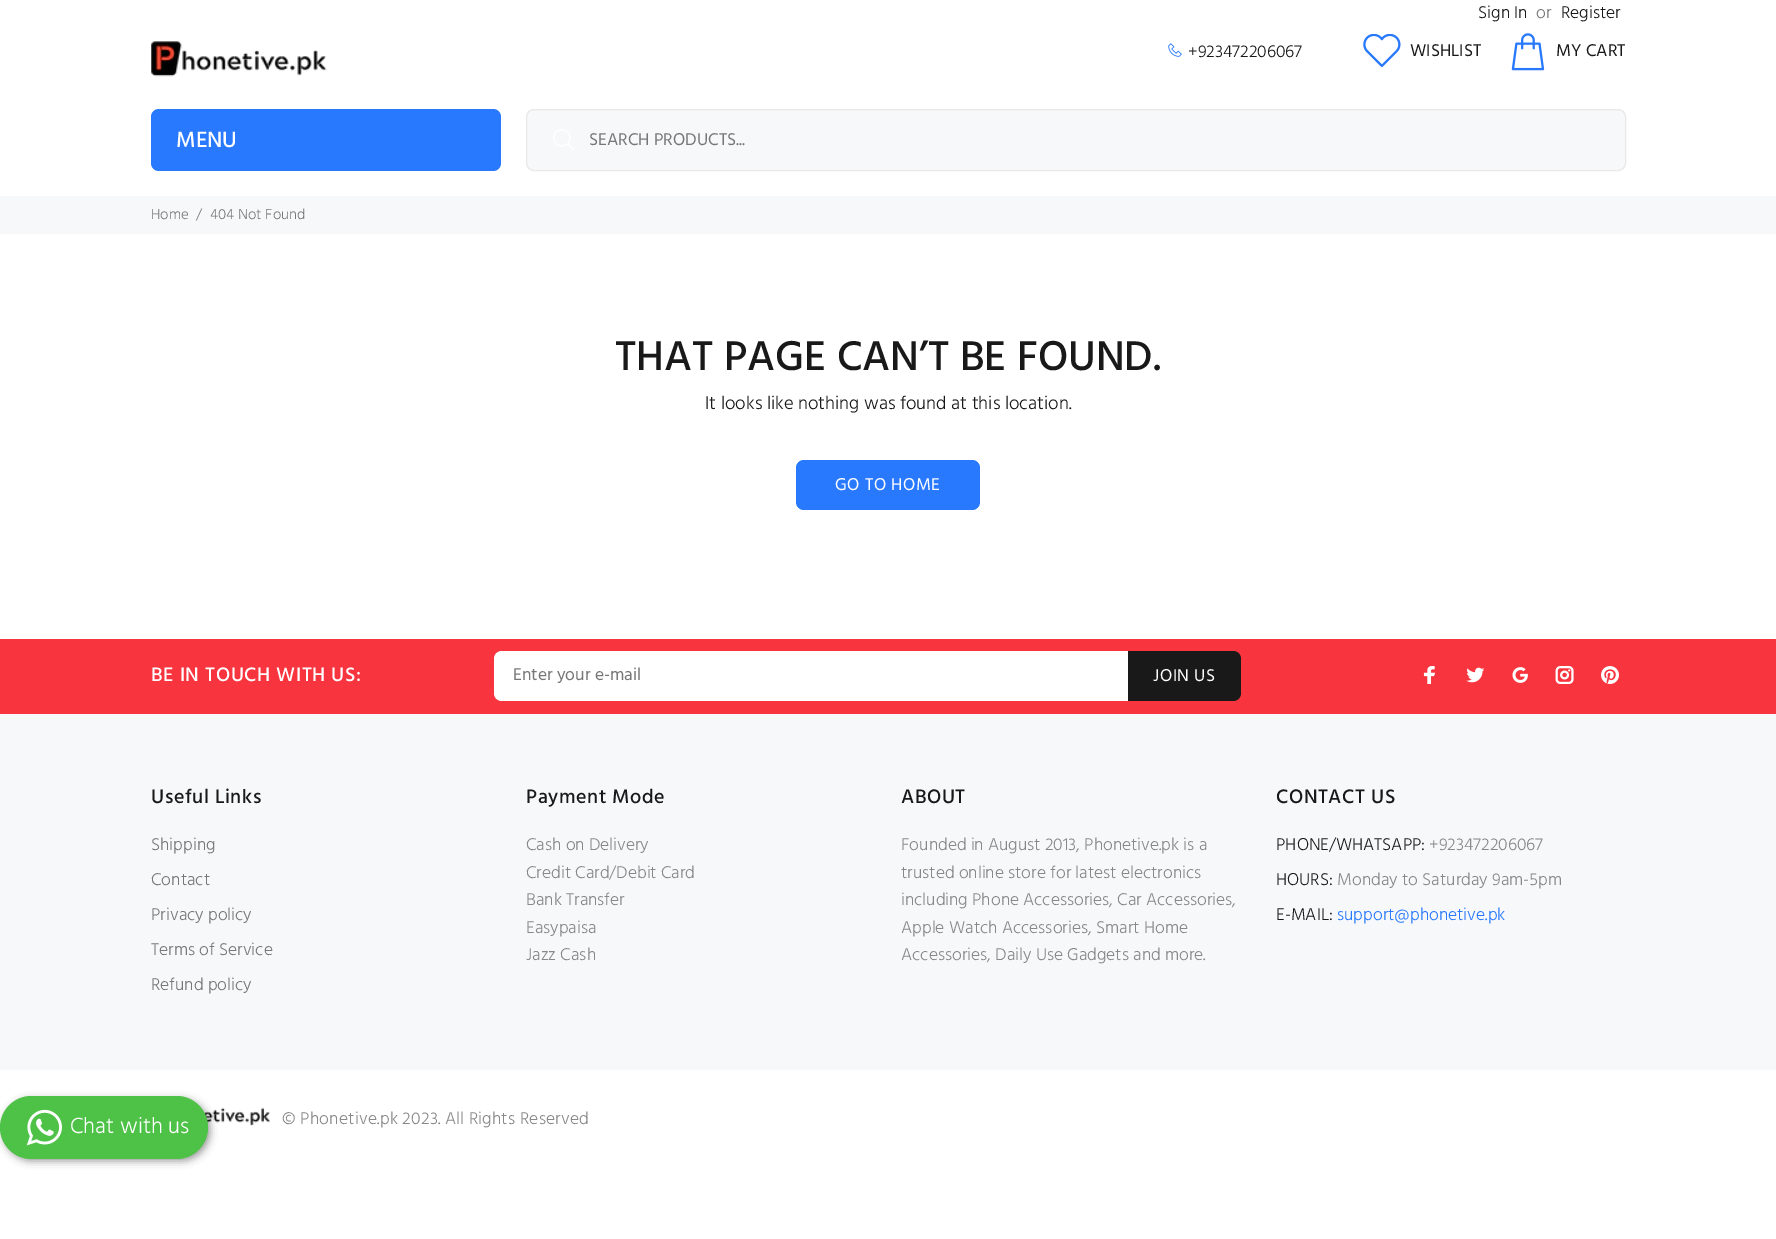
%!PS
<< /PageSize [1776 1239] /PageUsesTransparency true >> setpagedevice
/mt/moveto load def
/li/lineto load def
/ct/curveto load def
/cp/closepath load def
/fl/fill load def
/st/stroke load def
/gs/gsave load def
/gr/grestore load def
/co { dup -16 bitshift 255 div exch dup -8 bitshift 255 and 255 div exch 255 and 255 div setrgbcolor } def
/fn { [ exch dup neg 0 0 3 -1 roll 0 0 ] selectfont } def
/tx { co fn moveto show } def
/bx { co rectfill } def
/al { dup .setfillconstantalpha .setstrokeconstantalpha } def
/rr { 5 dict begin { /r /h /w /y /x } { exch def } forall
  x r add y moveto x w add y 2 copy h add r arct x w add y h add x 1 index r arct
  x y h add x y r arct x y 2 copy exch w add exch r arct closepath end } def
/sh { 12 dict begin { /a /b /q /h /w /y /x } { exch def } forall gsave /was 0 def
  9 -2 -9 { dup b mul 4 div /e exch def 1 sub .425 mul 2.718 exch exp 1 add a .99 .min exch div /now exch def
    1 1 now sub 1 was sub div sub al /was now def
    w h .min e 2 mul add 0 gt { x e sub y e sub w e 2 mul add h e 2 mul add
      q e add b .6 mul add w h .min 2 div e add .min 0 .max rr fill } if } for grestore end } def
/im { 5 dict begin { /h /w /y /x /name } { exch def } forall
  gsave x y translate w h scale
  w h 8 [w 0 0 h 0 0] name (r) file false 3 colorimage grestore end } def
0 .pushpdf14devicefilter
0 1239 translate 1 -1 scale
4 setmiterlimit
0 0 1776 1239 16#FFFFFF bx
(media/1.raw) 151 41 176 36 im
(media/2.raw) 1168 43 14 14 im
(media/3.raw) 1363 34 38 33 im
(media/4.raw) 1511 33 34 38 im
16#2879FE co
151 109 350 62 8 rr fl
16#F7F8FA co
526.5 109.5 1099 61 7.5 rr gs fl gr
16#E9E7E7 co
st
(media/5.raw) 553 129 21 21 im
0 196 1776 38 16#F7F8FA bx
16#2879FE co
796 460 184 50 8 rr fl
(media/12.raw) 204 1107 66 19 im
16#000000 co
3 1099 207 62 31 4 .4 sh
16#4DC247 co
0 1096 208 63 31.5 rr fl
(media/6.raw) 26 1109 36 37 im
0 714 1776 356 16#F7F8FA bx
0 639 1776 75 16#F8353E bx
16#FFFFFF co
502 651 mt 1128 651 li 1128 701 li 502 701 li 497.5 701 494 697.5 494 693 ct 494 659 li 494 654.5 497.5 651 502 651 ct cp fl
16#191919 co
1128 651 mt 1233 651 li 1237.5 651 1241 654.5 1241 659 ct 1241 693 li 1241 697.5 1237.5 701 1233 701 ct 1128 701 li cp fl
(media/7.raw) 1423 666 13 18 im
(media/8.raw) 1466 667 19 16 im
(media/9.raw) 1512 667 16 16 im
(media/10.raw) 1555 666 19 18 im
(media/11.raw) 1601 666 18 18 im
(Sign In) 1478 18 /Hind-Light 17.5 16#191919 tx
(or) 1536 18 /Hind-Light 17.5 16#777777 tx
(Register) 1561 18 /Hind-Light 17.5 16#191919 tx
(+923472206067) 1188 57 /Hind-Light 17.5 16#191919 tx
(WISHLIST) 1410 56 /Hind-Regular 17.5 16#191919 tx
(MY CART) 1556 56 /Hind-Regular 17.5 16#191919 tx
(MENU) 176 147 /Hind-Medium 22.5 16#FFFFFF tx
(SEARCH PRODUCTS...) 589 145 /Hind-Regular 17.5 16#777777 tx
(Home) 151 219 /Hind-Light 15 16#777777 tx
(/) 196 219 /Hind-Light 15 16#777777 tx
(404 Not Found) 210 219 /Hind-Light 15 16#777777 tx
(THAT PAGE CAN’T BE FOUND.) 615 370 /Hind-Medium 42.5 16#191919 tx
(It looks like nothing was found at this location.) 705 409 /Hind-Light 18.75 16#191919 tx
/Hind-Regular 17.5 fn
16#FFFFFF co
835 490 mt .5 0 (GO TO HOME) ashow
(Chat with us) 70 1133 /Hind-Light 22.5 16#FFFFFF tx
/Hind-Medium 20 fn
151 681 mt .6 0 (BE IN TOUCH WITH US:) ashow
(Enter your e-mail) 513 680 /Hind-Regular 17.5 16#777777 tx
16#FFFFFF co
1153 681 mt .5 0 (JOIN US) ashow
/Hind-Medium 20 fn
16#191919 co
151 803 mt .6 0 (Useful Links) ashow
(Shipping) 151 850 /Hind-Light 17.5 16#777777 tx
(Contact) 151 885 /Hind-Light 17.5 16#777777 tx
(Privacy policy) 151 920 /Hind-Light 17.5 16#777777 tx
(Terms of Service) 151 955 /Hind-Light 17.5 16#777777 tx
(Refund policy) 151 990 /Hind-Light 17.5 16#777777 tx
/Hind-Medium 20 fn
16#191919 co
526 803 mt .6 0 (Payment Mode) ashow
(Cash on Delivery) 526 850 /Hind-Light 17.5 16#888888 tx
(Credit Card/Debit Card) 526 878 /Hind-Light 17.5 16#888888 tx
(Bank Transfer) 526 905 /Hind-Light 17.5 16#888888 tx
(Easypaisa) 526 933 /Hind-Light 17.5 16#888888 tx
(Jazz Cash) 526 960 /Hind-Light 17.5 16#888888 tx
/Hind-Medium 20 fn
16#191919 co
901 803 mt .6 0 (ABOUT) ashow
(Founded in August 2013, Phonetive.pk is a) 901 850 /Hind-Light 17.5 16#888888 tx
(trusted online store for latest electronics) 901 878 /Hind-Light 17.5 16#888888 tx
(including Phone Accessories, Car Accessories,) 901 905 /Hind-Light 17.5 16#888888 tx
(Apple Watch Accessories, Smart Home) 901 933 /Hind-Light 17.5 16#888888 tx
(Accessories, Daily Use Gadgets and more.) 901 960 /Hind-Light 17.5 16#888888 tx
/Hind-Medium 20 fn
16#191919 co
1276 803 mt .6 0 (CONTACT US) ashow
(PHONE/WHATSAPP:) 1276 850 /Hind-Light 17.5 16#191919 tx
(+923472206067) 1429 850 /Hind-Light 17.5 16#888888 tx
(HOURS:) 1276 885 /Hind-Light 17.5 16#191919 tx
(Monday to Saturday 9am-5pm) 1337 885 /Hind-Light 17.5 16#888888 tx
(E-MAIL:) 1276 920 /Hind-Light 17.5 16#191919 tx
(support@phonetive.pk) 1337 920 /Hind-Light 17.5 16#2879FE tx
16#888888 co
282 1124 mt .2 0 (© Phonetive.pk 2023. All Rights Reserved) ashow
.poppdf14devicefilter showpage
